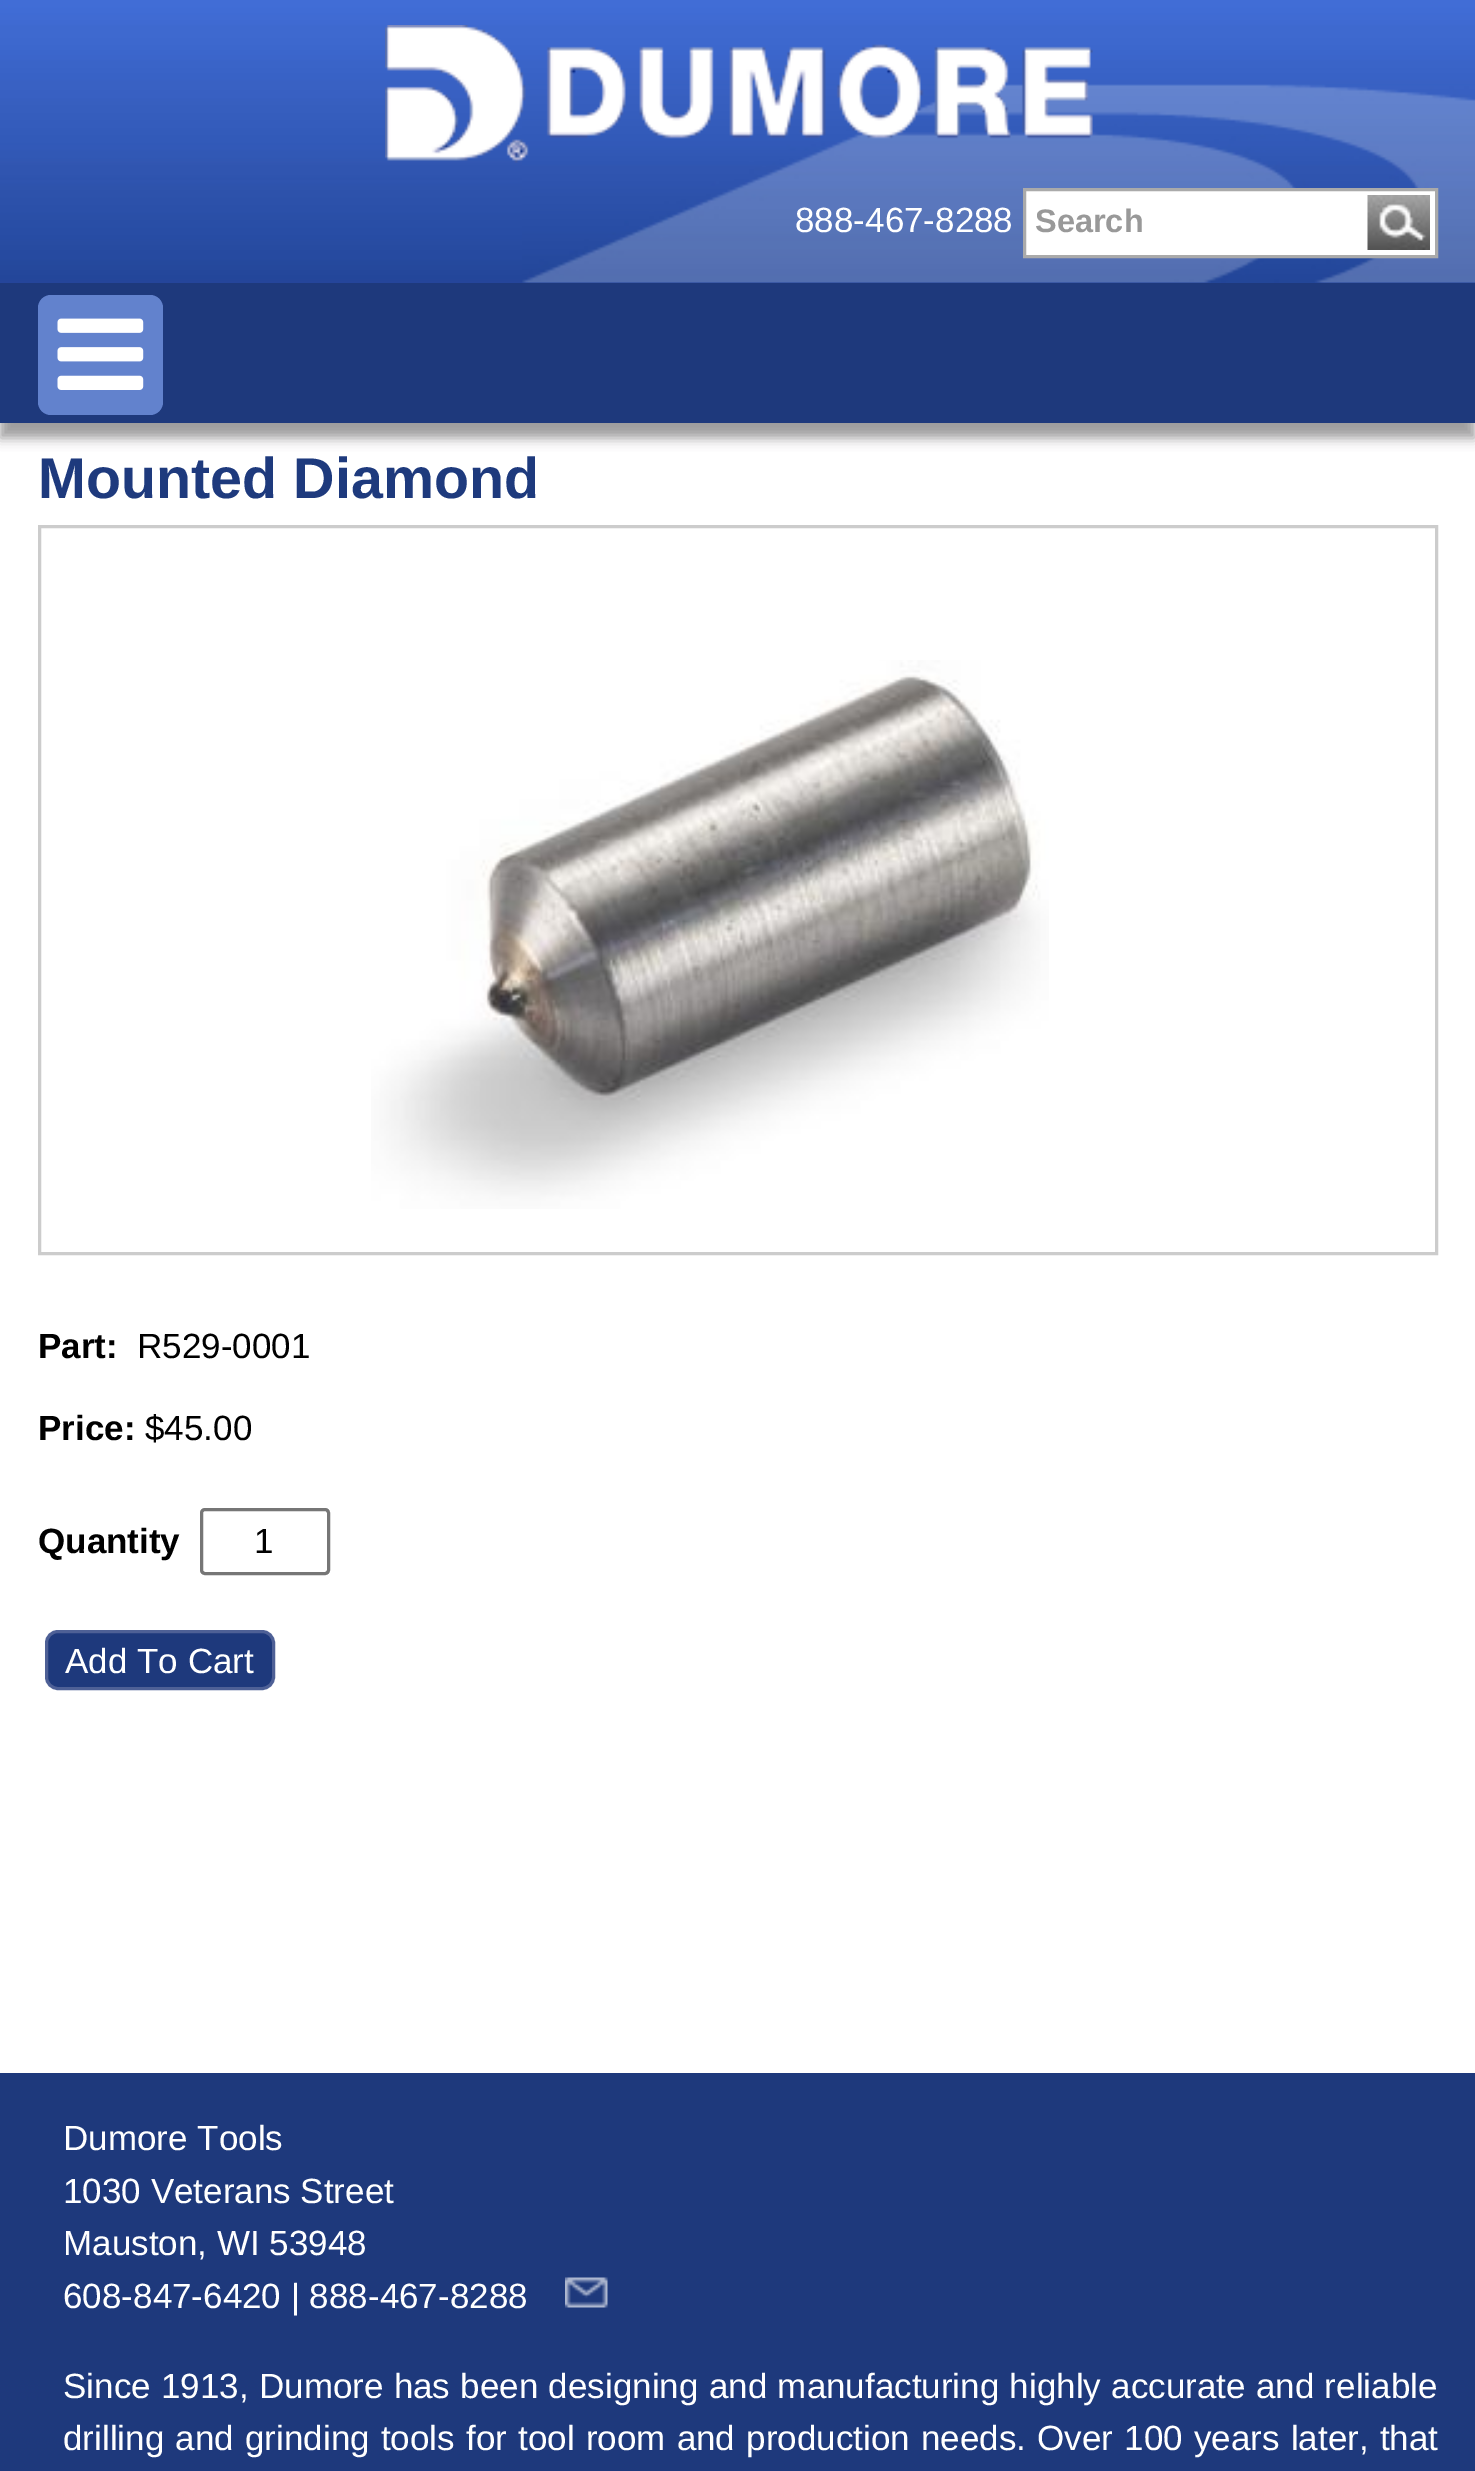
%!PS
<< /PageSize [1475 2471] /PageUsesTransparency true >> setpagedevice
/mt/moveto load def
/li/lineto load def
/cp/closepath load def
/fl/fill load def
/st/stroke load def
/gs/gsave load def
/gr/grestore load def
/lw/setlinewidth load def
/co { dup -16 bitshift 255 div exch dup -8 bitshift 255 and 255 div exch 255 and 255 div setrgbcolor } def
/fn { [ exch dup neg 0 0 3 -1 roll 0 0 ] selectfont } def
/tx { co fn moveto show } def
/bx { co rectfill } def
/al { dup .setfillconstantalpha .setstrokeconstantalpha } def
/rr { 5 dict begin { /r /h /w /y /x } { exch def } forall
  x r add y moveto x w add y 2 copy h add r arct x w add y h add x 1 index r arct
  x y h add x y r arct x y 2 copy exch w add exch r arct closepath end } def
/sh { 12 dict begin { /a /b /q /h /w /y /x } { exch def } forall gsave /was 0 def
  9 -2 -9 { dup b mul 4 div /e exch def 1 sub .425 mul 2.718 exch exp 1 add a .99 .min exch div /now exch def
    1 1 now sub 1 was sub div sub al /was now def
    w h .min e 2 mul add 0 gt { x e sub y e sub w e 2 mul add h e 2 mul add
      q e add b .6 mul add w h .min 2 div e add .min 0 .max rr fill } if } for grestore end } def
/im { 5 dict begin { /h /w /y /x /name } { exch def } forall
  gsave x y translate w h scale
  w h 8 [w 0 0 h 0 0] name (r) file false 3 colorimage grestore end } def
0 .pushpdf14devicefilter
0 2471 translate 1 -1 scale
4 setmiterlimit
0 0 1475 2471 16#FFFFFF bx
(media/1.raw) 0 0 1475 283 im
(media/2.raw) 522 84 953 199 im
(media/3.raw) 385 25 708 138 im
1024.5 189.5 mt 1436.5 189.5 li 1436.5 256.5 li 1024.5 256.5 li cp gs fl gr
16#AAAAAA co
3 lw
st
(media/4.raw) 1367 195 63 55 im
16#4D4C4D co
0 298 1475 140 0 6 .55 sh
0 283 1475 140 16#1E397C bx
16#6282CD co
38 295 125 120 13 rr fl
(media/5.raw) 57 318 87 72 im
16#CCCCCC co
39.5 526.5 1397 727 rectstroke
(media/6.raw) 371 660 678 549 im
16#767676 co
201.5 1509.5 127 64 3.5 rr st
16#1E397C co
46.5 1631.5 227 57 11.5 rr gs fl gr
16#4E6096 co
st
0 2073 1475 398 16#1E397C bx
(media/7.raw) 565 2277 43 31 im
(888-467-8288) 795 232 /LiberationSans-Regular 35 16#FFFFFF tx
(Search) 1035 232 /LiberationSans-Bold 32.5 16#999999 tx
(Mounted Diamond) 38 498 /LiberationSans-Bold 57.5 16#1E3A7D tx
(Part:) 38 1358 /LiberationSans-Bold 35 16#000000 tx
(R529-0001) 137 1358 /LiberationSans-Regular 35 16#000000 tx
(Price:) 38 1440 /LiberationSans-Bold 35 16#000000 tx
($45.00) 145 1440 /LiberationSans-Regular 35 16#000000 tx
(Quantity) 38 1553 /LiberationSans-Bold 35 16#000000 tx
(1) 254 1553 /LiberationSans-Regular 35 16#000000 tx
(Add To Cart) 65 1673 /LiberationSans-Regular 35 16#FFFFFF tx
(Dumore Tools) 63 2150 /LiberationSans-Regular 35 16#FFFFFF tx
(1030 Veterans Street) 63 2203 /LiberationSans-Regular 35 16#FFFFFF tx
(Mauston, WI 53948) 63 2255 /LiberationSans-Regular 35 16#FFFFFF tx
(608-847-6420 | 888-467-8288) 63 2308 /LiberationSans-Regular 35 16#FFFFFF tx
63 2398 mt .6 0 32 (Since 1913, Dumore has been designing and manufacturing highly accurate and reliable) widthshow
63 2450 mt 1.5 0 32 (drilling and grinding tools for tool room and production needs. Over 100 years later, that) widthshow
.poppdf14devicefilter showpage
